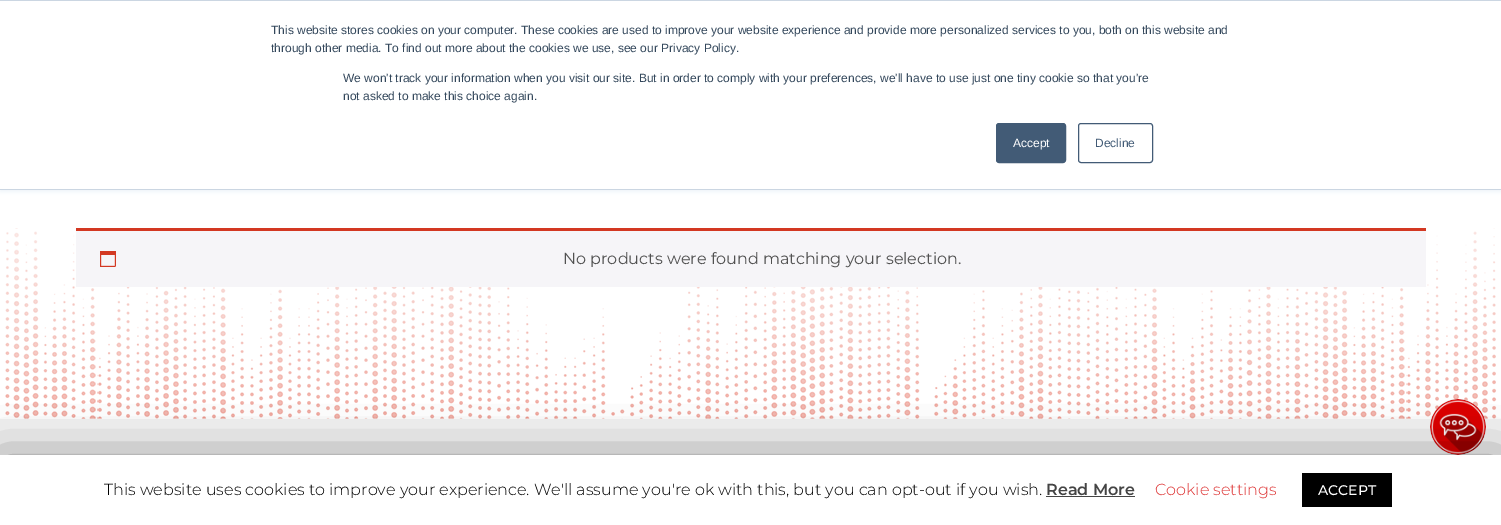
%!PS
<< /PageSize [1501 525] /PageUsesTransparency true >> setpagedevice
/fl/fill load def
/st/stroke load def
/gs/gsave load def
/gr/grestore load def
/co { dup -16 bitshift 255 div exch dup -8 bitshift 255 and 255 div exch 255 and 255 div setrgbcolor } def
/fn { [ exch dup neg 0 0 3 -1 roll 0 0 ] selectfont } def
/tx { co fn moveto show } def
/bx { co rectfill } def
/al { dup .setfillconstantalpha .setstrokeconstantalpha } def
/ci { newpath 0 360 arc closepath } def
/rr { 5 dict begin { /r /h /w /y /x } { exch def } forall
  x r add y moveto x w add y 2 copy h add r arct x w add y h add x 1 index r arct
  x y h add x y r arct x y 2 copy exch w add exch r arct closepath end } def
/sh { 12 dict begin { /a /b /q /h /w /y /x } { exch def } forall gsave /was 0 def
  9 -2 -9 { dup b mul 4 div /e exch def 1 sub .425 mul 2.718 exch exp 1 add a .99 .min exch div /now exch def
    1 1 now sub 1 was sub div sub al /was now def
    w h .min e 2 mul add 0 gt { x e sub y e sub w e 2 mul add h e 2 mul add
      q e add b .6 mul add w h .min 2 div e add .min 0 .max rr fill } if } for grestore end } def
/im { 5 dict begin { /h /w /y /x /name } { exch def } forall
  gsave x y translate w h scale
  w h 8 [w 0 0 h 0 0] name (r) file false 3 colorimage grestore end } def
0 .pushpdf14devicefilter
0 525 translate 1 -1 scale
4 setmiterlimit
0 0 1501 525 16#FFFFFF bx
16#EAF0F6 co
0 1 1501 190 0 2.5 1 sh
0 1 1501 188 16#FFFFFF bx
0 0 1501 1 16#CBD6E2 bx
0 189 1501 1 16#CBD6E2 bx
16#425B76 co
996.5 123.5 69 39 2.5 rr gs fl gr
st
1078.5 123.5 74 39 2.5 rr st
(media/1.raw) 5 228 1492 191 im
76 231 1350 56 16#F6F5F8 bx
76 228 1350 3 16#D33822 bx
(media/2.raw) 100 251 16 16 im
0 419 1501 36 16#F4F4F4 bx
16#D0CFCF co
1458 427 28 ci fl
(media/3.raw) 1430 399 56 56 im
16#000000 co
0 460 1501 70 0 25 .5 sh
0 455 1501 70 16#FFFFFF bx
1046 496 89 1 16#444444 bx
1302 473 90 34 16#000000 bx
(This website stores cookies on your computer. These cookies are used to improve your website experience and provide more personalized services to you, both on this website and) 271 34 /LiberationSans-Regular 12 16#33475B tx
(through other media. To find out more about the cookies we use, see our Privacy Policy.) 271 52 /LiberationSans-Regular 12 16#33475B tx
(We won't track your information when you visit our site. But in order to comply with your preferences, we'll have to use just one tiny cookie so that you're) 343 82 /LiberationSans-Regular 12 16#33475B tx
(not asked to make this choice again.) 343 100 /LiberationSans-Regular 12 16#33475B tx
(Accept) 1013 147 /LiberationSans-Regular 12 16#FFFFFF tx
(Decline) 1095 147 /LiberationSans-Regular 12 16#425B76 tx
(No products were found matching your selection.) 563 264 /Montserrat-Regular 16 16#515151 tx
(This website uses cookies to improve your experience. We'll assume you're ok with this, but you can opt-out if you wish.) 104 495 /Montserrat-Light 16 16#000000 tx
(Read More) 1046 495 /Montserrat-SemiBold 16 16#444444 tx
(Cookie settings) 1155 495 /Montserrat-Light 16 16#DD3333 tx
(ACCEPT) 1318 495 /Montserrat-Medium 14 16#FFFFFF tx
.poppdf14devicefilter showpage
